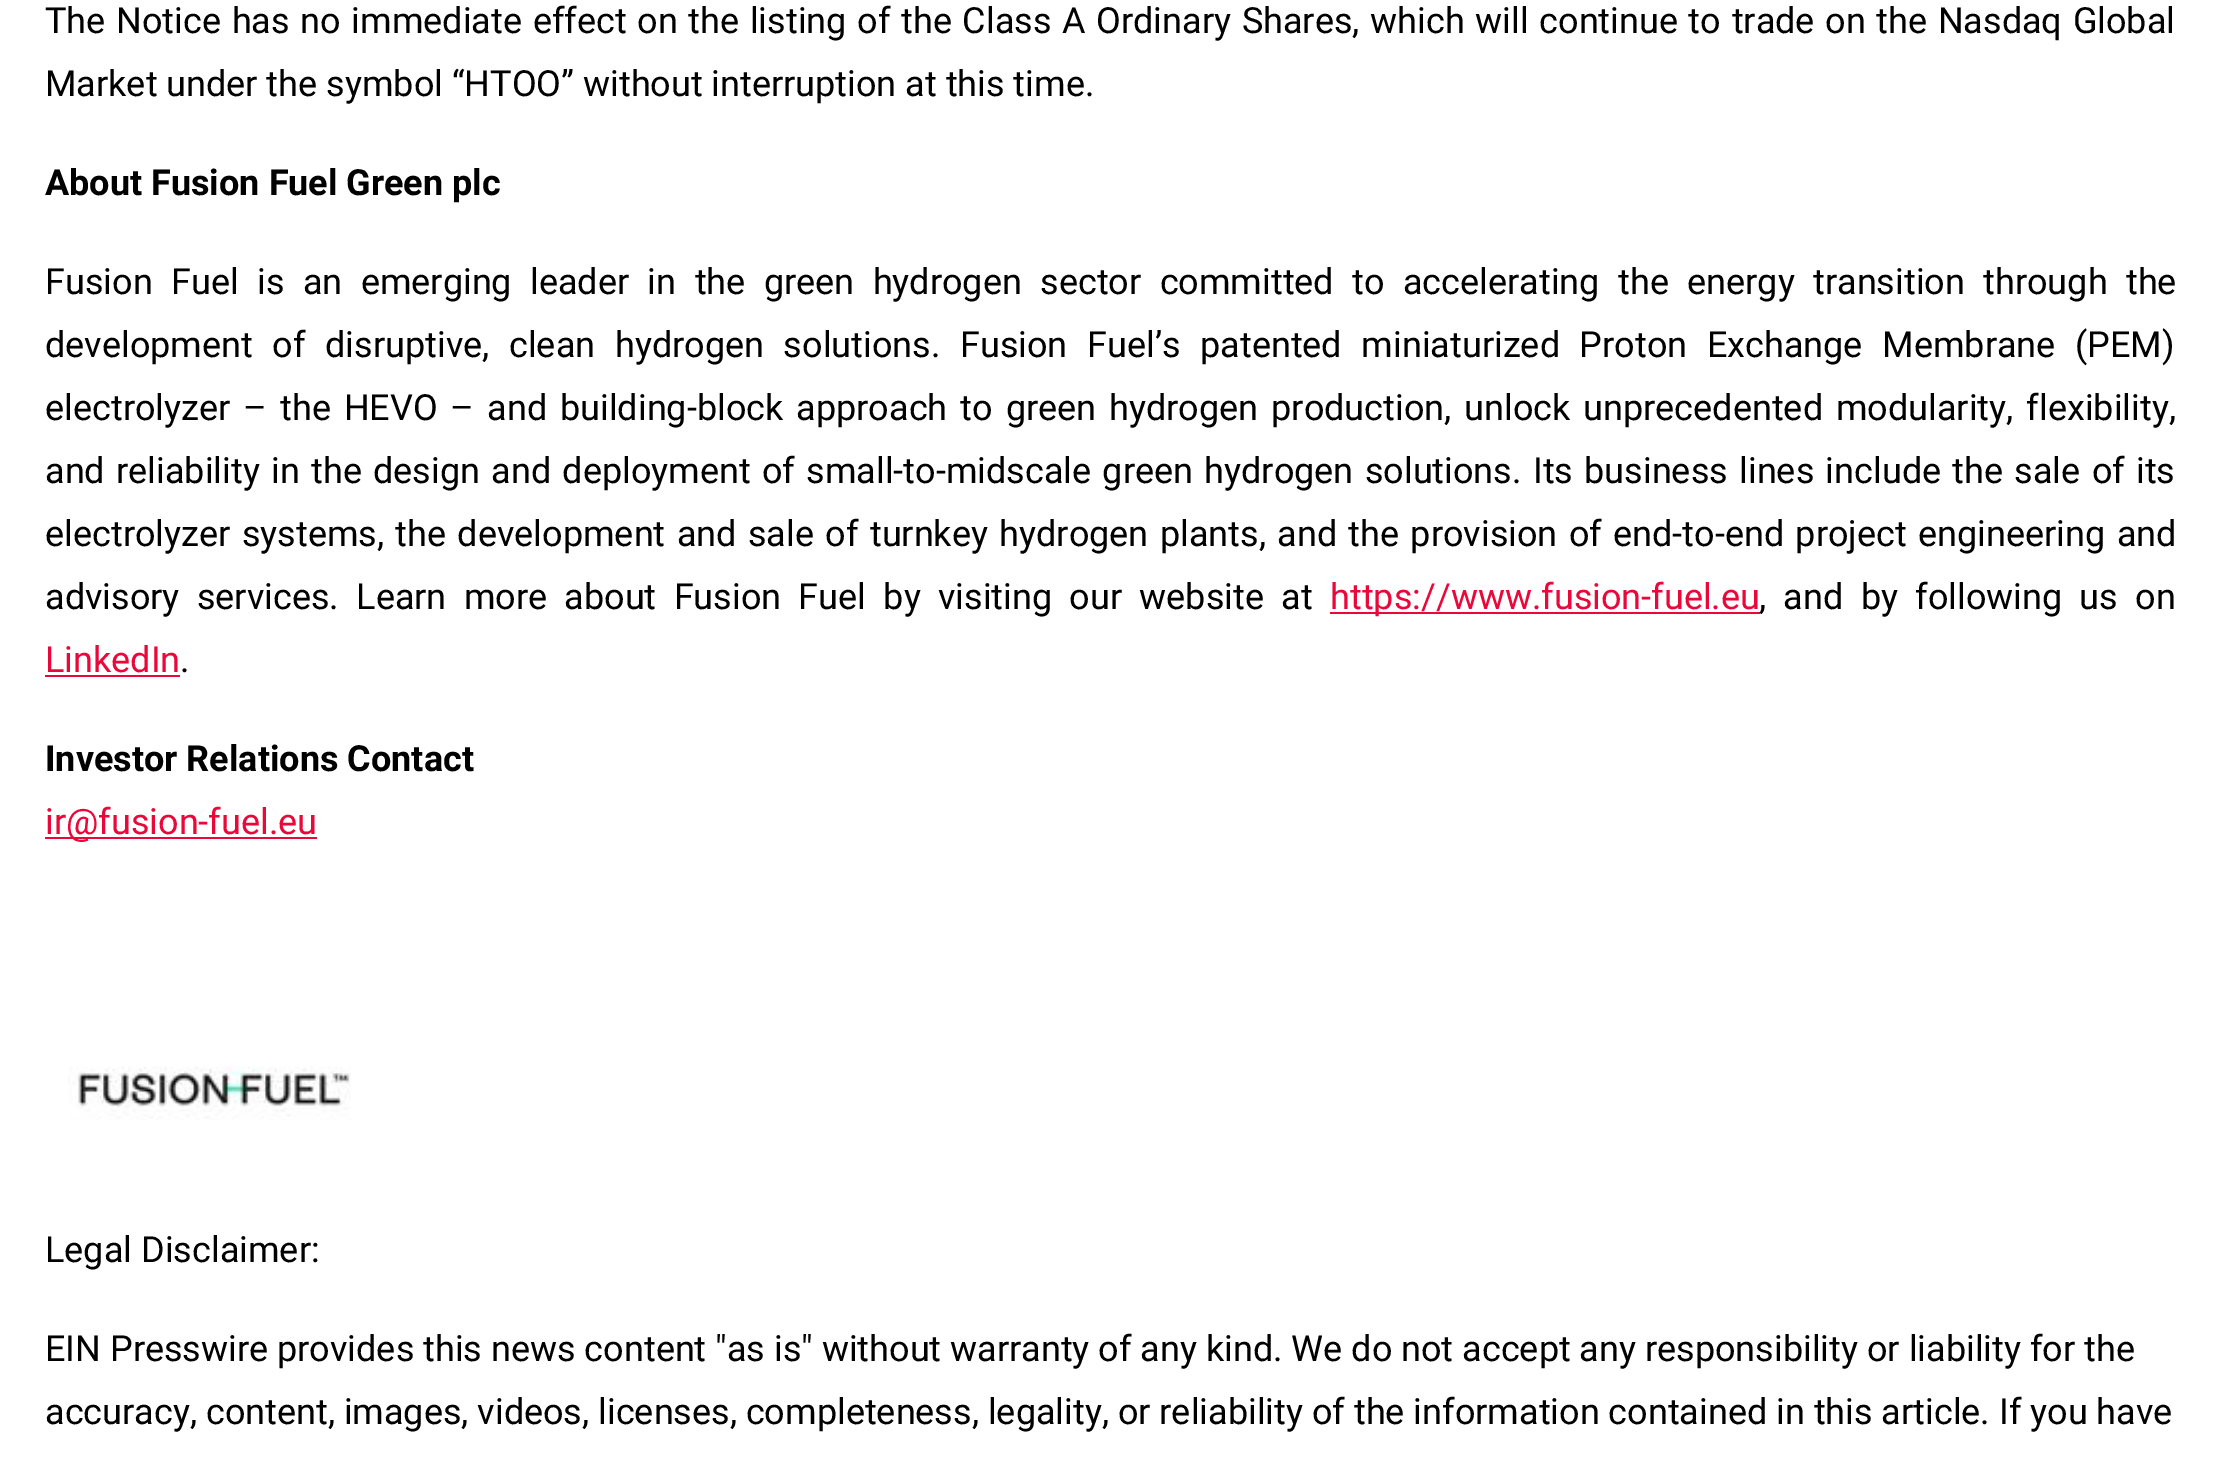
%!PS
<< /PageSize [2220 1469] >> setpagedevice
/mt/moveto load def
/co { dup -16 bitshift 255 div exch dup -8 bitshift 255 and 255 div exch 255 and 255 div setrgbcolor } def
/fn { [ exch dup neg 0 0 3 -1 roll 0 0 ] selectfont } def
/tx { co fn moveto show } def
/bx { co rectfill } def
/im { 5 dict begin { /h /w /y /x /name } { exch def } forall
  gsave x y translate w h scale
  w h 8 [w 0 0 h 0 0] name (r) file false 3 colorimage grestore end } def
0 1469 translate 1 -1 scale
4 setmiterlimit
0 0 2220 1469 16#FFFFFF bx
1330 612 430 2 16#EA0739 bx
45 675 135 2 16#EA0739 bx
45 837 272 2 16#EA0739 bx
(media/1.raw) 68 1066 283 54 im
/Roboto-Regular 36 fn
16#000000 co
45 33 mt 1.8 0 32 (The Notice has no immediate effect on the listing of the Class A Ordinary Shares, which will continue to trade on the Nasdaq Global) widthshow
(Market under the symbol “HTOO” without interruption at this time.) 45 96 /Roboto-Regular 36 16#000000 tx
(About Fusion Fuel Green plc) 45 195 /Roboto-Bold 36 16#000000 tx
/Roboto-Regular 36 fn
45 294 mt 9.5 0 32 (Fusion Fuel is an emerging leader in the green hydrogen sector committed to accelerating the energy transition through the) widthshow
45 357 mt 10.75 0 32 (development of disruptive, clean hydrogen solutions. Fusion Fuel’s patented miniaturized Proton Exchange Membrane \(PEM\)) widthshow
45 420 mt 4.1 0 32 (electrolyzer – the HEVO – and building-block approach to green hydrogen production, unlock unprecedented modularity, flexibility,) widthshow
45 483 mt 2.4 0 32 (and reliability in the design and deployment of small-to-midscale green hydrogen solutions. Its business lines include the sale of its) widthshow
45 546 mt 2.5 0 32 (electrolyzer systems, the development and sale of turnkey hydrogen plants, and the provision of end-to-end project engineering and) widthshow
45 609 mt 8.4 0 32 (advisory services. Learn more about Fusion Fuel by visiting our website at) widthshow
(https://www.fusion-fuel.eu) 1330 609 /Roboto-Regular 36 16#EA0739 tx
16#000000 co
1759 609 mt 8.4 0 32 (, and by following us on) widthshow
(LinkedIn) 45 672 /Roboto-Regular 36 16#EA0739 tx
(.) 180 672 /Roboto-Regular 36 16#000000 tx
(Investor Relations Contact) 45 771 /Roboto-Bold 36 16#000000 tx
(ir@fusion-fuel.eu) 45 834 /Roboto-Regular 36 16#EA0739 tx
(Legal Disclaimer:) 45 1262 /Roboto-Regular 36 16#000000 tx
(EIN Presswire provides this news content "as is" without warranty of any kind. We do not accept any responsibility or liability for the) 45 1361 /Roboto-Regular 36 16#000000 tx
(accuracy, content, images, videos, licenses, completeness, legality, or reliability of the information contained in this article. If you have) 45 1424 /Roboto-Regular 36 16#000000 tx
showpage
